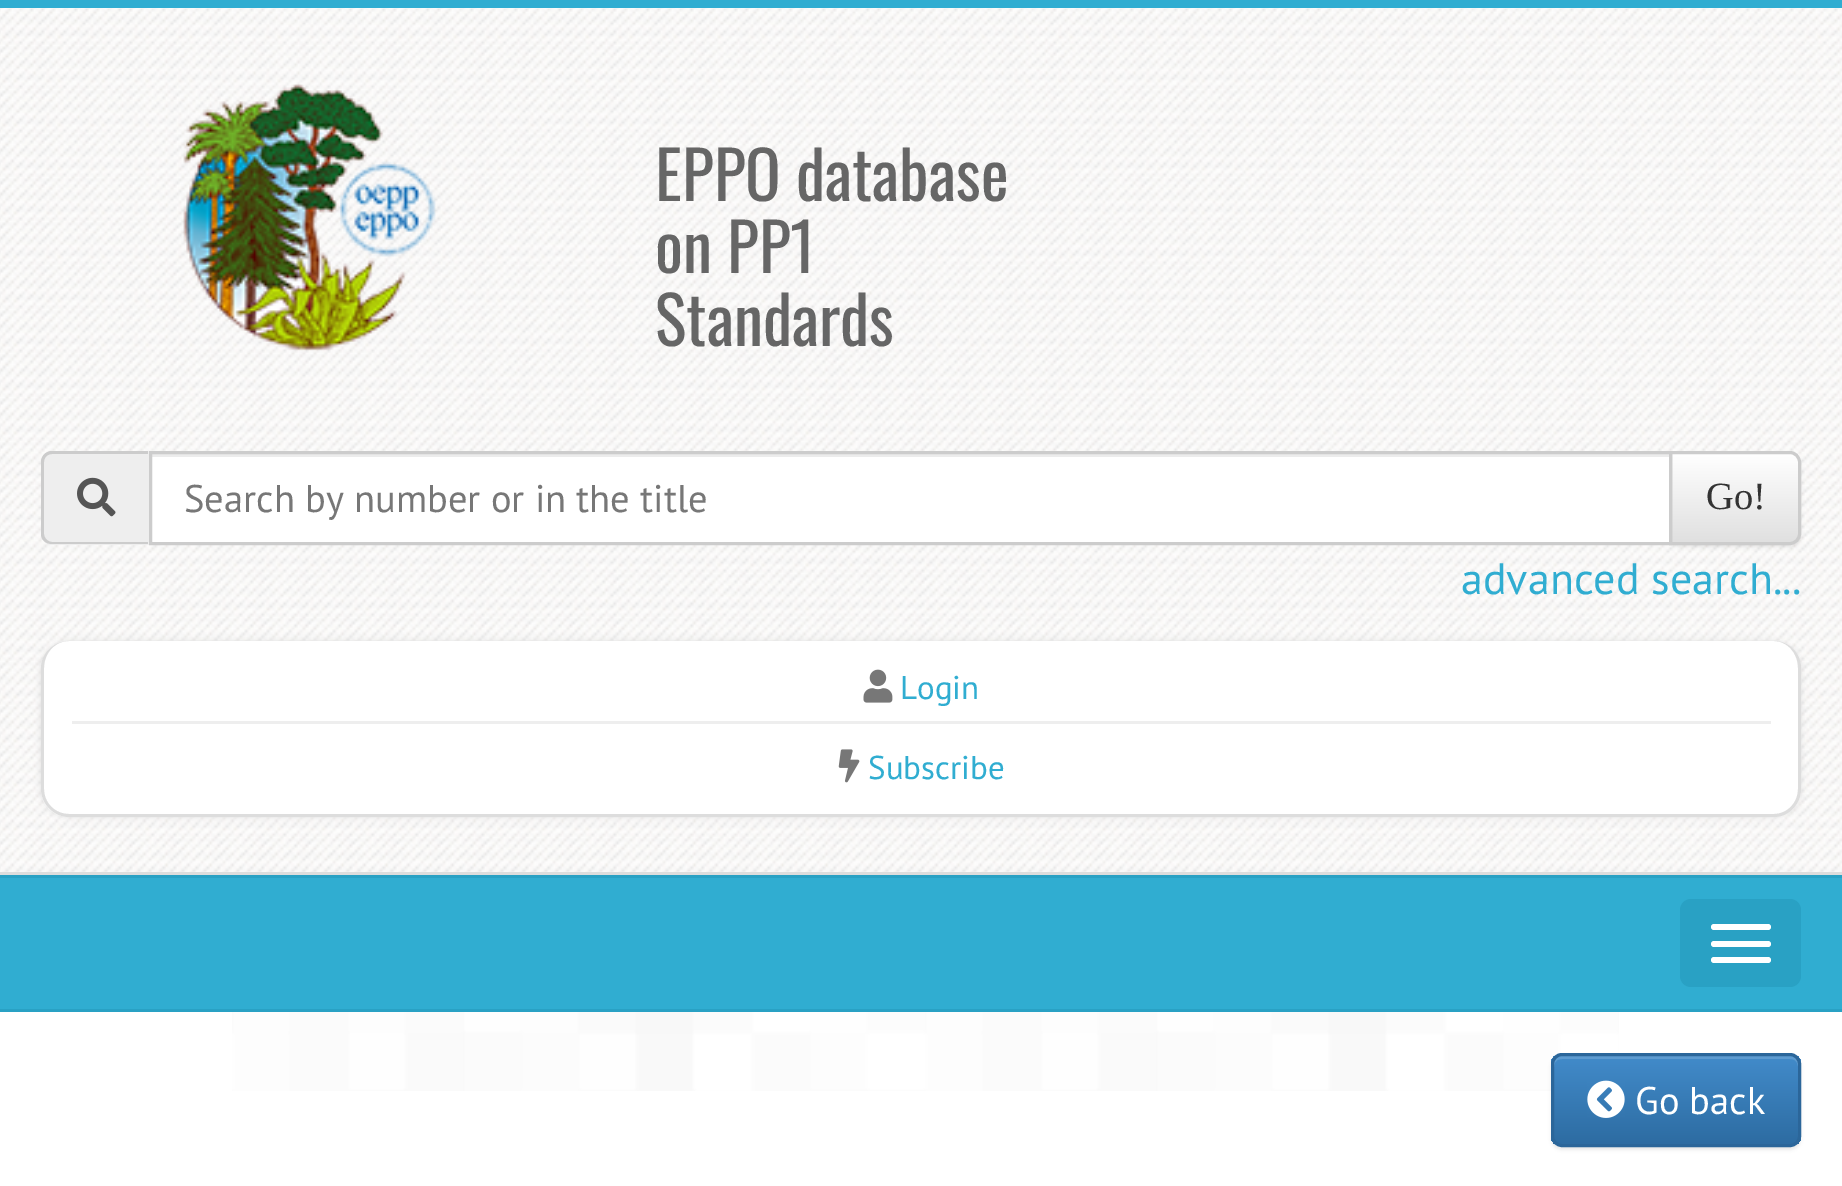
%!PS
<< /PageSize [1842 1186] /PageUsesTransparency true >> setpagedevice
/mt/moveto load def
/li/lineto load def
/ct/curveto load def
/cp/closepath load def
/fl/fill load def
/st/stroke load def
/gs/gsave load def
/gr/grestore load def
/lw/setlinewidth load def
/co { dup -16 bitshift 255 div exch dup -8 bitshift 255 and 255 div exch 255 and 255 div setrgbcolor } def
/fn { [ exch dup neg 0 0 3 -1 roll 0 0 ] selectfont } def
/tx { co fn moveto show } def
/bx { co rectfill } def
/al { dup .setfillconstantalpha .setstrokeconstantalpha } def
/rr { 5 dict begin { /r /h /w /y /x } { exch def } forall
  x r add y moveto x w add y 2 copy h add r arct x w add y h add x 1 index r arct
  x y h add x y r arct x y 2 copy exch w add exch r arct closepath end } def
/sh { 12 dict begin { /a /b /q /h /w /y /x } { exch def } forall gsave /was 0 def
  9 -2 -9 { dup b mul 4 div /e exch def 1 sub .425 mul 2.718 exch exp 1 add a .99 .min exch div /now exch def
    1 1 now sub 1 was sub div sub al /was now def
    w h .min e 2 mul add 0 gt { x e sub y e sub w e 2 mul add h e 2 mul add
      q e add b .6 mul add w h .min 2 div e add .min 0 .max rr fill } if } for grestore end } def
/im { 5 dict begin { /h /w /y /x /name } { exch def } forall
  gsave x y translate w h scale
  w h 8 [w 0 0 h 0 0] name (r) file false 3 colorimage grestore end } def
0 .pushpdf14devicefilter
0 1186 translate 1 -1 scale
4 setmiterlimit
0 0 1842 1186 16#FFFFFF bx
(media/1.raw) 232 8 1387 1083 im
0 0 1842 8 16#30ADD1 bx
(media/2.raw) 0 8 1842 864 im
0 872 1842 3 16#DDDDDD bx
(media/3.raw) 183 84 253 267 im
16#EEEEEE co
52 451 mt 149 451 li 149 545 li 52 545 li 46 545 41 540 41 534 ct 41 462 li 41 456 46 451 52 451 ct cp fl
16#CCCCCC co
52 451 mt 148 451 li 148 544 li 52 544 li 46 544 41 540 41 534 ct 41 462 li 41 456 46 451 52 451 ct cp 52 454 mt 148 454 li 148 542 li 52 542 li 48 542 44 538 44 534 ct 44 462 li 44 457 48 454 52 454 ct cp eofill
(media/4.raw) 77 477 39 40 im
16#000000 co
1669 454 132 93 11 1.5 .07 sh
152 457 1517 85 16#FFFFFF bx
151 454 1518 3 16#ECECEC bx
gs
1669 451 mt 1790 451 li 1796 451 1801 456 1801 462 ct 1801 534 li 1801 540 1796 545 1790 545 ct 1669 545 li cp clip newpath
gs 1672 454 mt 1801 454 li 1801 542 li 1672 542 li cp clip newpath
<< /ShadingType 2 /ColorSpace /DeviceRGB /Coords [1735 454 1735 542] /Extend [true true] /Function << /FunctionType 2 /Domain [0 1] /C0 [1 1 1] /C1 [.878 .878 .878] /N 1 >> >> shfill gr
gr
0.15 al
16#FFFFFF co
1672 456 mt 1790 456 li 1800 456 1798 471 1798 477 ct 1798 538 li 1799 537 1799 536 1799 534 ct 1799 462 li 1799 458 1795 454 1791 454 ct 1672 454 li cp fl
1 al
16#CCCCCC co
3 lw
1670.5 452.5 mt 1790 452.5 li 1795 452.5 1799.5 457 1799.5 462 ct 1799.5 534 li 1799.5 539 1795 543.5 1790 543.5 ct 1670.5 543.5 li cp st
150.5 452.5 1520 91 rectstroke
16#DDDDDD co
41 641 1760 176 28 3 1 sh
16#FFFFFF co
41 641 1760 176 28 rr fl
16#DDDDDD co
69 641 mt 1774 641 li 1789 641 1801 653 1801 668 ct 1801 789 li 1801 804 1789 817 1774 817 ct 69 817 li 54 817 41 804 41 789 ct 41 668 li 41 653 54 641 69 641 ct cp 69 641 mt 1774 641 li 1787 641 1798 653 1798 668 ct 1798 789 li 1798 803 1787 814 1774 814 ct 69 814 li 55 814 44 803 44 789 ct 44 668 li 44 653 55 641 69 641 ct cp eofill
(media/5.raw) 863 669 30 34 im
72 721 1699 3 16#EEEEEE bx
(media/6.raw) 838 749 22 34 im
0 878 1842 131 16#30ADD1 bx
0 875 1842 3 16#29A1C4 bx
0 1009 1842 3 16#29A1C4 bx
1680 899 121 88 11 rr fl
16#FFFFFF co
1711 924 60 6 3 rr fl
1711 941 60 6 3 rr fl
1711 957 60 6 3 rr fl
16#000000 co
1551 1056 250 94 11 1.5 .07 sh
gs
1551 1053 250 94 11 rr clip newpath
gs 1551 1056 mt 1801 1056 li 1801 1144 li 1551 1144 li cp clip newpath
<< /ShadingType 2 /ColorSpace /DeviceRGB /Coords [1676 1056 1676 1144] /Extend [true true] /Function << /FunctionType 2 /Domain [0 1] /C0 [.259 .545 .792] /C1 [.176 .424 .635] /N 1 >> >> shfill gr
gr
0.15 al
16#FFFFFF co
1562 1059 mt 1790 1059 li 1801 1059 1798 1072 1798 1079 ct 1798 1140 li 1799 1139 1799 1138 1799 1136 ct 1799 1064 li 1799 1060 1795 1056 1791 1056 ct 1562 1056 li 1558 1056 1554 1060 1554 1064 ct 1554 1067 li 1554 1062 1557 1059 1562 1059 ct cp fl
1 al
16#2B669A co
1552.5 1054.5 247 91 9.5 rr st
(media/7.raw) 1587 1080 38 38 im
(EPPO database) 655 201 /Oswald-Regular 66 16#666666 tx
(on PP1) 655 273 /Oswald-Regular 66 16#666666 tx
(Standards) 655 346 /Oswald-Regular 66 16#666666 tx
(Search by number or in the title) 184 512 /PTSans-Regular 38.5 16#777777 tx
(Go!) 1706 509 /LiberationSerif-Regular 38.5 16#333333 tx
(advanced search...) 1461 594 /PTSans-Regular 44 16#30ADD1 tx
(Login) 900 699 /PTSans-Regular 33 16#30ADD1 tx
(Subscribe) 868 779 /PTSans-Regular 33 16#30ADD1 tx
(Go back) 1635 1114 /PTSans-Regular 38.5 16#FFFFFF tx
.poppdf14devicefilter showpage
